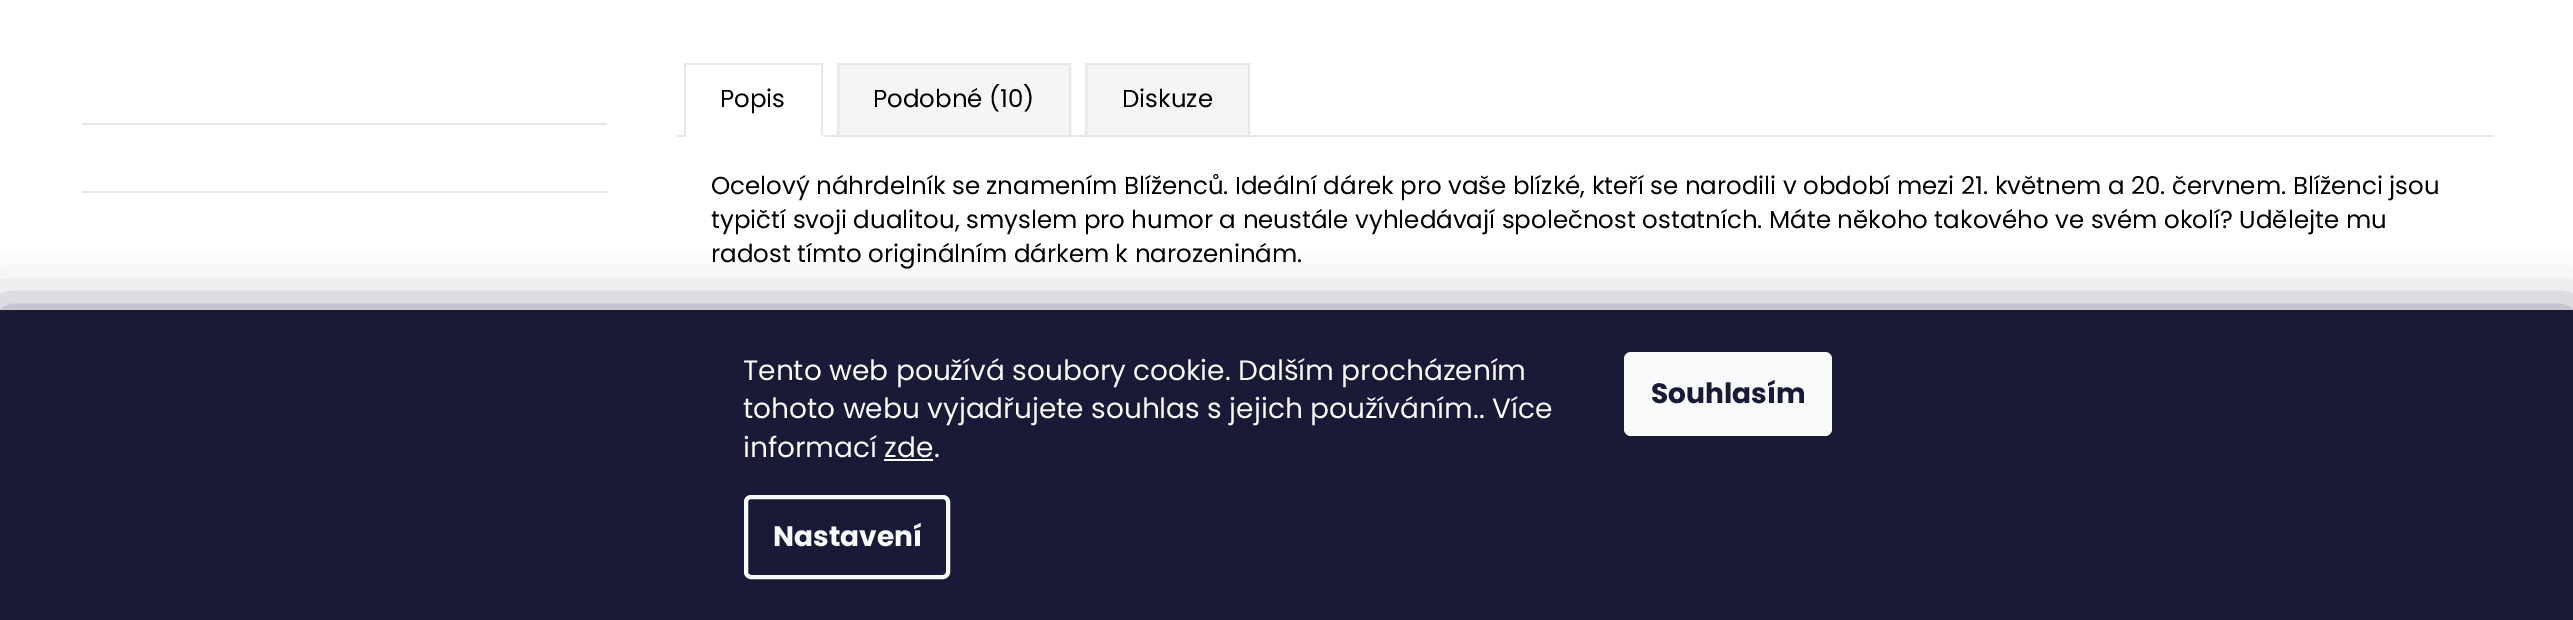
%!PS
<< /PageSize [2573 620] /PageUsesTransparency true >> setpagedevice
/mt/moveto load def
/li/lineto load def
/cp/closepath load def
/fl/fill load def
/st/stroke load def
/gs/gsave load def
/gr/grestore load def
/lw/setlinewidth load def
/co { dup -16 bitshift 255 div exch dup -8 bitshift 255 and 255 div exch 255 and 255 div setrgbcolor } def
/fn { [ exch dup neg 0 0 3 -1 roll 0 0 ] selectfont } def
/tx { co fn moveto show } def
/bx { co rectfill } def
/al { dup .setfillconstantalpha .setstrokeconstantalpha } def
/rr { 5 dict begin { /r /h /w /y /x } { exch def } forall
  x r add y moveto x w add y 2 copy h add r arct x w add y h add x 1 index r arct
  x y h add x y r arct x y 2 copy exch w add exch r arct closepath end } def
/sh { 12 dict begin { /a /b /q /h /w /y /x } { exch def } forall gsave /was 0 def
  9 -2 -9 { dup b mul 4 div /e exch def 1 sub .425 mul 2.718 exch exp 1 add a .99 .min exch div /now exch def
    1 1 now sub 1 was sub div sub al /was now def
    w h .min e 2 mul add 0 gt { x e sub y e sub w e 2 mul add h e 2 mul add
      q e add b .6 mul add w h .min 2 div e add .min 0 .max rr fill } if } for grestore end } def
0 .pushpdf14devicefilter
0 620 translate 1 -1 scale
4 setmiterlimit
0 0 2573 620 16#FFFFFF bx
82 123 525 2 16#E6E6E6 bx
82 191 525 2 16#E6E6E6 bx
677 135 1817 2 16#E7E7E7 bx
684 63 139 2 16#E7E7E7 bx
821 63 2 74 16#E7E7E7 bx
684 135 139 2 16#FFFFFF bx
684 63 2 74 16#E7E7E7 bx
16#F5F5F5 co
838 64 mt 1070 64 li 1070 136 li 838 136 li cp gs fl gr
16#E7E7E7 co
2 lw
st
16#F5F5F5 co
1086 64 mt 1249 64 li 1249 136 li 1086 136 li cp gs fl gr
16#E7E7E7 co
st
16#1B1939 co
0 310 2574 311 0 26 .5 sh
0 310 2573 310 16#1A1937 bx
884 459 49 2 16#F8FAFB bx
4 lw
746 497 202 80 5 rr st
1624 352 208 84 7 rr fl
(Popis) 720 107 /Poppins-Regular 24.5 16#000000 tx
(Podobné \(10\)) 873 107 /Poppins-Regular 24.5 16#000000 tx
(Diskuze) 1122 107 /Poppins-Regular 24.5 16#000000 tx
(Ocelový náhrdelník se znamením Blíženců. Ideální dárek pro vaše blízké, kteří se narodili v období mezi 21. květnem a 20. červnem. Blíženci jsou) 711 194 /Poppins-Regular 24.5 16#000000 tx
(typičtí svoji dualitou, smyslem pro humor a neustále vyhledávají společnost ostatních. Máte někoho takového ve svém okolí? Udělejte mu) 711 228 /Poppins-Regular 24.5 16#000000 tx
(radost tímto originálním dárkem k narozeninám.) 711 262 /Poppins-Regular 24.5 16#000000 tx
(Tento web používá soubory cookie. Dalším procházením) 743 380 /Poppins-Regular 28 16#F8FAFB tx
(tohoto webu vyjadřujete souhlas s jejich používáním.. Více) 743 418 /Poppins-Regular 28 16#F8FAFB tx
(informací zde.) 743 457 /Poppins-Regular 28 16#F8FAFB tx
(Nastavení) 773 546 /Poppins-Bold 28 16#F8FAFB tx
(Souhlasím) 1651 403 /Poppins-Bold 28 16#1A1937 tx
.poppdf14devicefilter showpage
